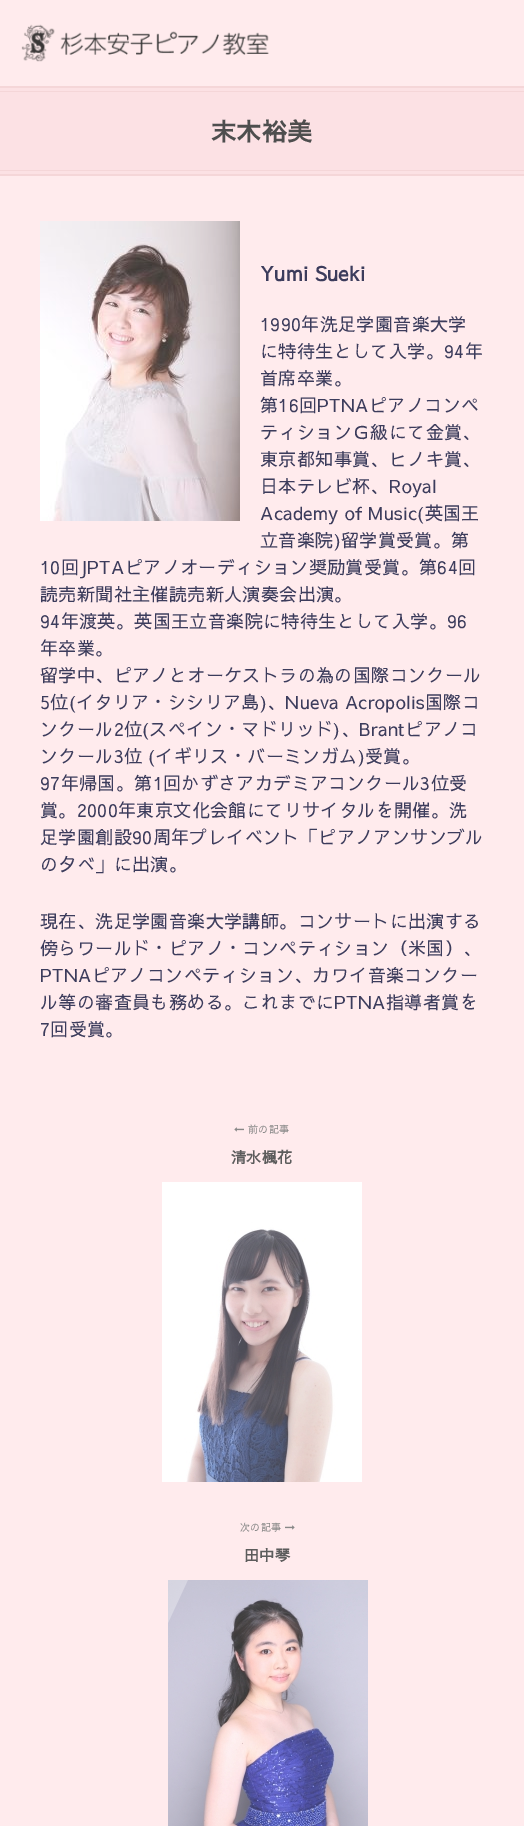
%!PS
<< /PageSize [524 1826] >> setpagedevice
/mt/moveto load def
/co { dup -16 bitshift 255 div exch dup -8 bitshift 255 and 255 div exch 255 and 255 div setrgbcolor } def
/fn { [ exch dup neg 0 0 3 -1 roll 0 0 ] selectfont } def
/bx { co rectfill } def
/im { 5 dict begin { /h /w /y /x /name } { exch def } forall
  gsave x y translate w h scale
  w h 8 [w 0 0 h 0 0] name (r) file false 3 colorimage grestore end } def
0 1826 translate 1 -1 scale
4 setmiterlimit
0 0 524 1826 16#FFEBED bx
(media/1.raw) 21 24 248 38 im
0 88 524 86 16#FCE1E4 bx
0 86 524 2 16#F5D6D8 bx
0 91 524 1 16#F5D6D8 bx
0 170 524 1 16#F5D6D8 bx
0 174 524 2 16#F5D6D8 bx
(media/2.raw) 40 221 200 300 im
(media/3.raw) 234 1127 10 5 im
(media/4.raw) 162 1182 200 300 im
(media/5.raw) 285 1525 10 5 im
(media/6.raw) 168 1580 200 246 im
/SawarabiGothic-Bold 25 fn
16#4E4E4E co
211 141 mt .4 0 (末木裕美) ashow
/SawarabiGothic-Bold 20 fn
16#3C3C5C co
260 281 mt .4 0 (Yumi Sueki) ashow
/SawarabiGothic-Regular 18 fn
260 331 mt .4 0 (1990年洗足学園音楽大学) ashow
260 358 mt .4 0 (に特待生として入学。94年) ashow
260 385 mt .4 0 (首席卒業。) ashow
260 412 mt .4 0 (第16回PTNAピアノコンペ) ashow
260 439 mt .4 0 (ティションＧ級にて金賞、) ashow
260 466 mt .4 0 (東京都知事賞、ヒノキ賞、) ashow
260 493 mt .4 0 (日本テレビ杯、Royal) ashow
260 520 mt .4 0 (Academy of Music\(英国王) ashow
260 547 mt .4 0 (立音楽院\)留学賞受賞。第) ashow
40 574 mt .4 0 (10回JPTAピアノオーディション奨励賞受賞。第64回) ashow
40 601 mt .4 0 (読売新聞社主催読売新人演奏会出演。) ashow
40 628 mt .4 0 (94年渡英。英国王立音楽院に特待生として入学。96) ashow
40 655 mt .4 0 (年卒業。) ashow
40 682 mt .4 0 (留学中、ピアノとオーケストラの為の国際コンクール) ashow
40 709 mt .4 0 (5位\(イタリア・シシリア島\)、Nueva Acropolis国際コ) ashow
40 736 mt .4 0 (ンクール2位\(スペイン・マドリッド\)、Brantピアノコ) ashow
40 763 mt .4 0 (ンクール3位 \(イギリス・バーミンガム\)受賞。) ashow
40 790 mt .4 0 (97年帰国。第1回かずさアカデミアコンクール3位受) ashow
40 817 mt .4 0 (賞。2000年東京文化会館にてリサイタルを開催。洗) ashow
40 844 mt .4 0 (足学園創設90周年プレイベント「ピアノアンサンブル) ashow
40 871 mt .4 0 (の夕べ」に出演。) ashow
40 928 mt .4 0 (現在、洗足学園音楽大学講師。コンサートに出演する) ashow
40 955 mt .4 0 (傍らワールド・ピアノ・コンペティション（米国）、) ashow
40 982 mt .4 0 (PTNAピアノコンペティション、カワイ音楽コンクー) ashow
40 1009 mt .4 0 (ル等の審査員も務める。これまでにPTNA指導者賞を) ashow
40 1036 mt .4 0 (7回受賞。) ashow
/SawarabiGothic-Regular 10 fn
16#888888 co
248 1133 mt .4 0 (前の記事) ashow
/SawarabiGothic-Bold 15 fn
16#5C5C5C co
231 1163 mt .4 0 (清水楓花) ashow
/SawarabiGothic-Regular 10 fn
16#888888 co
240 1531 mt .4 0 (次の記事) ashow
/SawarabiGothic-Bold 15 fn
16#5C5C5C co
244 1561 mt .4 0 (田中琴) ashow
showpage
